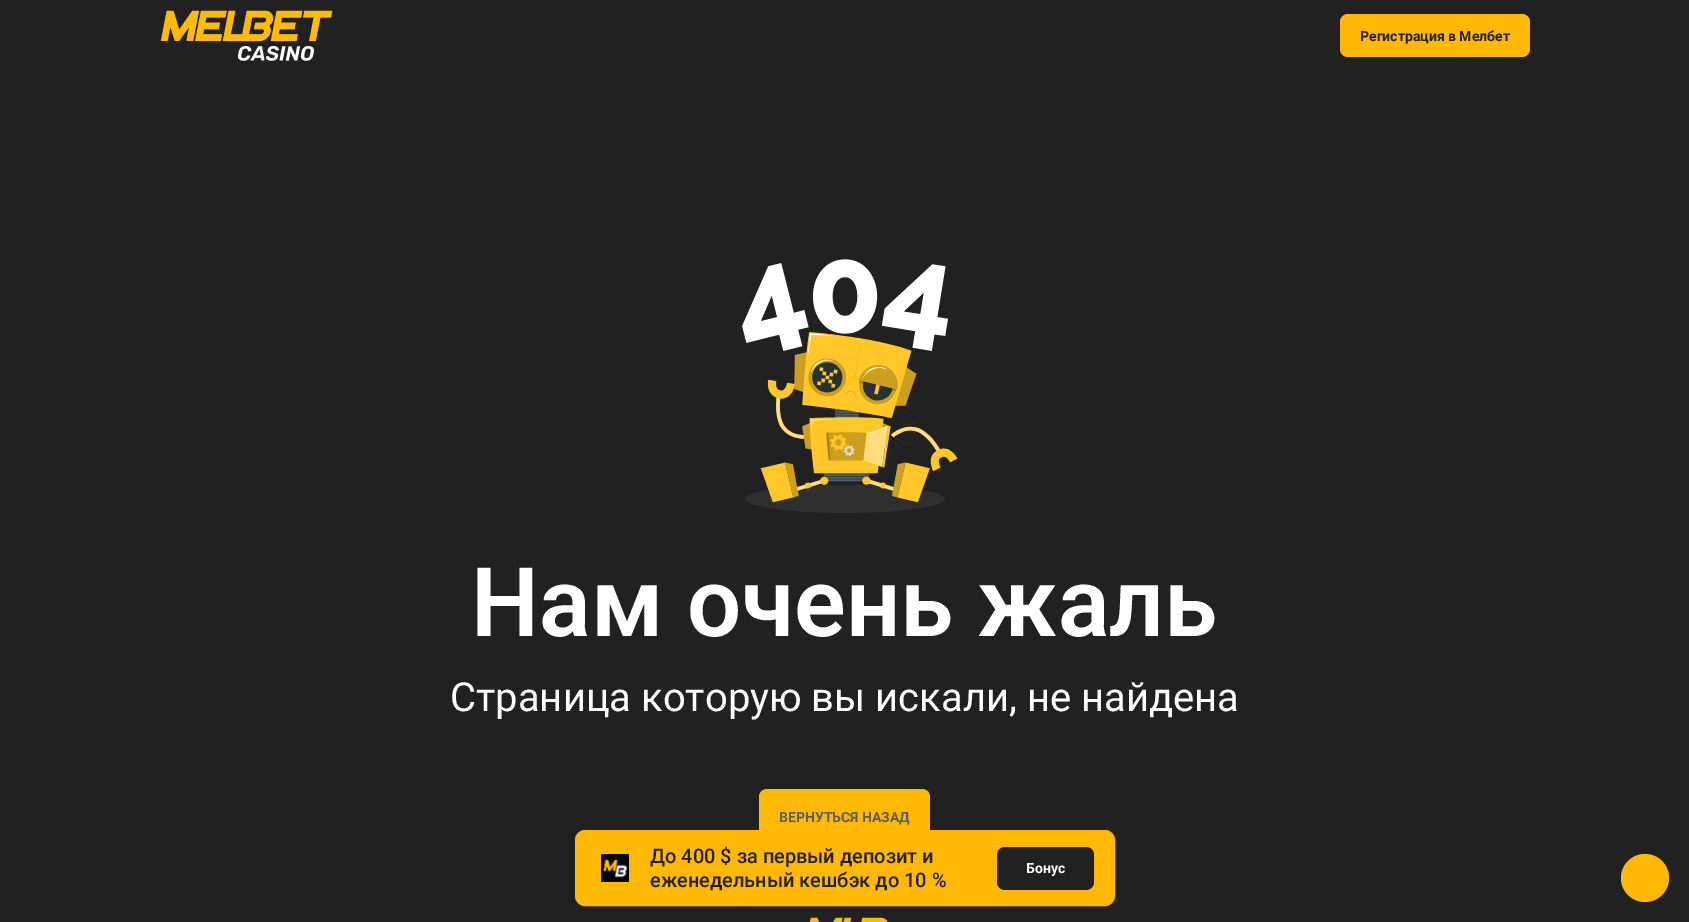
%!PS
<< /PageSize [1689 922] >> setpagedevice
/fl/fill load def
/st/stroke load def
/gs/gsave load def
/gr/grestore load def
/lw/setlinewidth load def
/co { dup -16 bitshift 255 div exch dup -8 bitshift 255 and 255 div exch 255 and 255 div setrgbcolor } def
/fn { [ exch dup neg 0 0 3 -1 roll 0 0 ] selectfont } def
/tx { co fn moveto show } def
/bx { co rectfill } def
/ci { newpath 0 360 arc closepath } def
/rr { 5 dict begin { /r /h /w /y /x } { exch def } forall
  x r add y moveto x w add y 2 copy h add r arct x w add y h add x 1 index r arct
  x y h add x y r arct x y 2 copy exch w add exch r arct closepath end } def
/im { 5 dict begin { /h /w /y /x /name } { exch def } forall
  gsave x y translate w h scale
  w h 8 [w 0 0 h 0 0] name (r) file false 3 colorimage grestore end } def
0 922 translate 1 -1 scale
4 setmiterlimit
0 0 1689 922 16#212121 bx
(media/1.raw) 160 10 173 51 im
16#FFB804 co
1340 14 190 43 8 rr fl
(media/2.raw) 742 259 216 254 im
759 789 171 55 8 rr fl
(media/3.raw) 810 917 78 5 im
576.5 831.5 537 73 8.5 rr gs fl gr
3 lw
st
(media/4.raw) 601 854 28 28 im
16#212121 co
997 847 97 43 8 rr fl
16#FFB804 co
1645 878 24 ci fl
(Регистрация в Мелбет) 1360 41 /Roboto-Bold 14 16#212121 tx
(Нам очень жаль) 471 636 /Roboto-SemiBold 96 16#FFFFFF tx
(Страница которую вы искали, не найдена) 450 711 /Roboto-Regular 40 16#FFFFFF tx
(ВЕРНУТЬСЯ НАЗАД) 779 822 /Roboto-Bold 14 16#5E5E5E tx
(До 400 $ за первый депозит и) 650 863 /Roboto-Medium 20 16#212121 tx
(еженедельный кешбэк до 10 %) 650 887 /Roboto-Medium 20 16#212121 tx
(Бонус) 1026 873 /Roboto-Bold 14 16#FFFFFF tx
showpage
